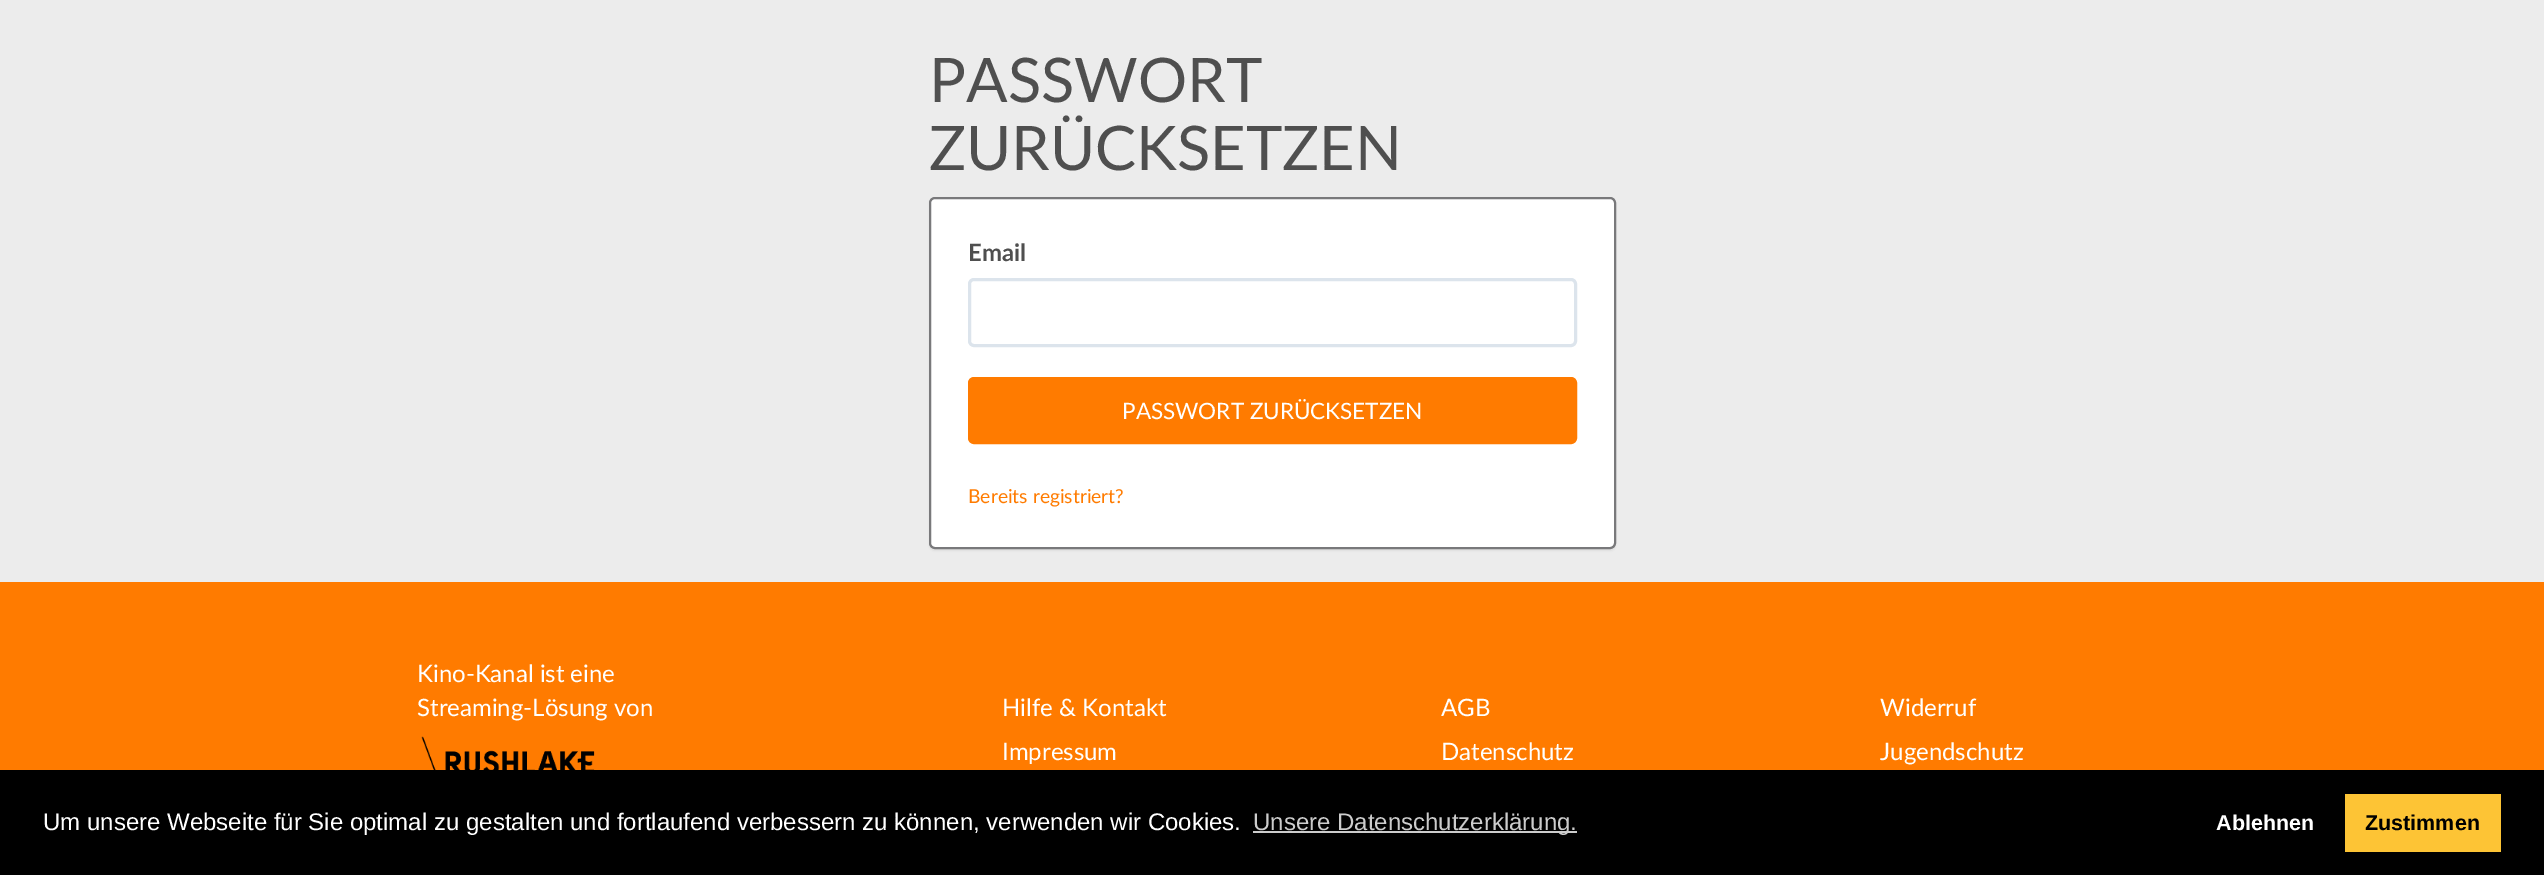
%!PS
<< /PageSize [2544 875] /PageUsesTransparency true >> setpagedevice
/fl/fill load def
/st/stroke load def
/gs/gsave load def
/gr/grestore load def
/lw/setlinewidth load def
/co { dup -16 bitshift 255 div exch dup -8 bitshift 255 and 255 div exch 255 and 255 div setrgbcolor } def
/fn { [ exch dup neg 0 0 3 -1 roll 0 0 ] selectfont } def
/tx { co fn moveto show } def
/bx { co rectfill } def
/al { dup .setfillconstantalpha .setstrokeconstantalpha } def
/rr { 5 dict begin { /r /h /w /y /x } { exch def } forall
  x r add y moveto x w add y 2 copy h add r arct x w add y h add x 1 index r arct
  x y h add x y r arct x y 2 copy exch w add exch r arct closepath end } def
/sh { 12 dict begin { /a /b /q /h /w /y /x } { exch def } forall gsave /was 0 def
  9 -2 -9 { dup b mul 4 div /e exch def 1 sub .425 mul 2.718 exch exp 1 add a .99 .min exch div /now exch def
    1 1 now sub 1 was sub div sub al /was now def
    w h .min e 2 mul add 0 gt { x e sub y e sub w e 2 mul add h e 2 mul add
      q e add b .6 mul add w h .min 2 div e add .min 0 .max rr fill } if } for grestore end } def
/im { 5 dict begin { /h /w /y /x /name } { exch def } forall
  gsave x y translate w h scale
  w h 8 [w 0 0 h 0 0] name (r) file false 3 colorimage grestore end } def
0 .pushpdf14devicefilter
0 875 translate 1 -1 scale
4 setmiterlimit
0 0 2544 875 16#ECECEC bx
16#000000 co
929 198 687 353 6 1 .05 sh
16#FFFFFF co
930 198 685 350 5 rr gs fl gr
16#79797B co
2 lw
st
16#DCE4EC co
3 lw
969.5 279.5 606 66 4.5 rr st
16#FF7B00 co
969.5 378.5 606 64 4.5 rr gs fl gr
st
0 582 2544 188 16#FF7B00 bx
(media/1.raw) 421 736 174 34 im
0 770 2544 105 16#000000 bx
1253 831 324 2 16#CCCCCC bx
2345 794 156 58 16#FDC435 bx
(PASSWORT) 929 102 /Lato-Regular 61.5 16#4F4F4F tx
(ZURÜCKSETZEN) 929 170 /Lato-Regular 61.5 16#4F4F4F tx
(Email) 968 261 /Lato-Bold 24 16#4F4F4F tx
(PASSWORT ZURÜCKSETZEN) 1122 419 /Lato-Regular 22.5 16#FFFFFF tx
(Bereits registriert?) 968 503 /Lato-Regular 19.25 16#FF7B00 tx
(Kino-Kanal ist eine) 417 682 /Lato-Regular 24 16#FFFFFF tx
(Streaming-Lösung von) 417 716 /Lato-Regular 24 16#FFFFFF tx
(Hilfe & Kontakt) 1002 716 /Lato-Regular 24 16#FFFFFF tx
(Impressum) 1002 760 /Lato-Regular 24 16#FFFFFF tx
(AGB) 1441 716 /Lato-Regular 24 16#FFFFFF tx
(Datenschutz) 1441 760 /Lato-Regular 24 16#FFFFFF tx
(Widerruf) 1880 716 /Lato-Regular 24 16#FFFFFF tx
(Jugendschutz) 1880 760 /Lato-Regular 24 16#FFFFFF tx
(Um unsere Webseite für Sie optimal zu gestalten und fortlaufend verbessern zu können, verwenden wir Cookies.) 43 830 /LiberationSans-Regular 24 16#FFFFFF tx
(Unsere Datenschutzerklärung.) 1253 830 /LiberationSans-Regular 24 16#CCCCCC tx
(Ablehnen) 2216 830 /LiberationSans-Bold 21.5 16#FFFFFF tx
(Zustimmen) 2365 830 /LiberationSans-Bold 21.5 16#000000 tx
.poppdf14devicefilter showpage
